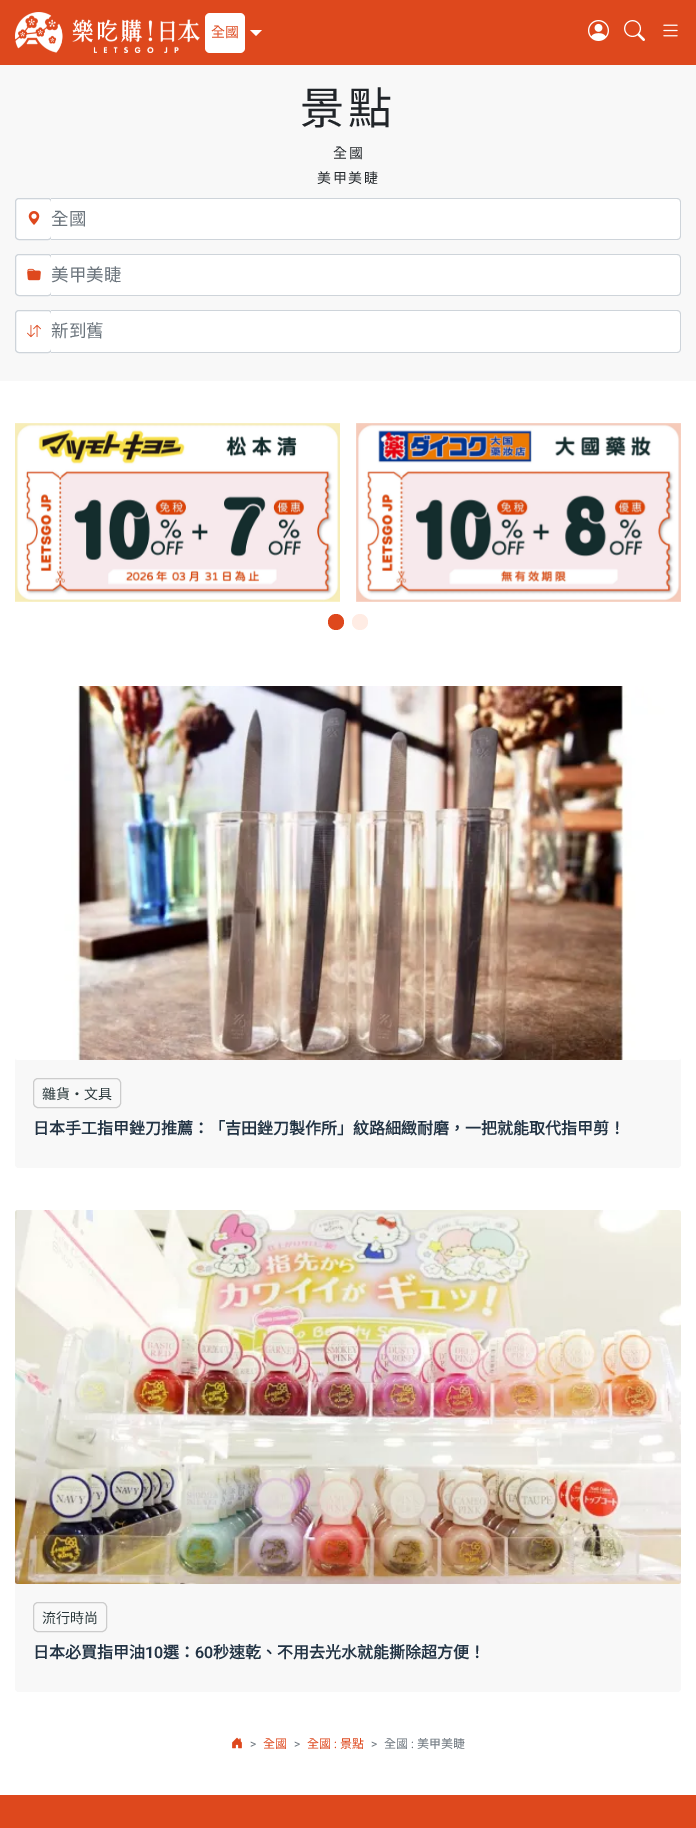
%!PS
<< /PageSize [696 1828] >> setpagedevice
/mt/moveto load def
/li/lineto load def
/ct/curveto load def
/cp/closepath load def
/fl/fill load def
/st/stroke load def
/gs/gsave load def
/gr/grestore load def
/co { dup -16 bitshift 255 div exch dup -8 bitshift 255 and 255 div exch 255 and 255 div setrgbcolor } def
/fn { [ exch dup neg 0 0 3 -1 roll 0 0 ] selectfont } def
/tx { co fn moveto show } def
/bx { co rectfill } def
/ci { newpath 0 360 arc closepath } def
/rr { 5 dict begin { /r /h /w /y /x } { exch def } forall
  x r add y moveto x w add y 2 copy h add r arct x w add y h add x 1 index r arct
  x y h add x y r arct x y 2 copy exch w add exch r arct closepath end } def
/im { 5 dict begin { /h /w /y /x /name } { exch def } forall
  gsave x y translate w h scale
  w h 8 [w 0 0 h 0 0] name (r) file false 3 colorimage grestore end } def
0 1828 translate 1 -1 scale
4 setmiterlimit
0 0 696 1828 16#FFFFFF bx
0 0 696 65 16#DE481D bx
(media/1.raw) 15 12 185 41 im
16#FFFFFF co
205 13 40 40 5 rr fl
250 30 mt 262 30 li 256 36 li cp fl
(media/2.raw) 588 20 21 21 im
(media/3.raw) 624 20 21 21 im
(media/4.raw) 663 24 15 13 im
0 65 696 316 16#F8F8F8 bx
16#FFFFFF co
15.5 198.5 36 41 3.5 rr gs fl gr
16#CED4DA co
st
(media/5.raw) 28 211 12 14 im
16#FFFFFF co
51 199 mt 677 199 li 678.5 199 680 200.5 680 202 ct 680 236 li 680 237.5 678.5 239 677 239 ct 51 239 li cp fl
16#CED4DA co
51 198 mt 677 198 li 679 198 681 200 681 202 ct 681 236 li 681 238 679 240 677 240 ct 51 240 li cp 51 199 mt 677 199 li 679 199 680 200 680 202 ct 680 236 li 680 238 679 239 677 239 ct 51 239 li cp eofill
16#FFFFFF co
15.5 254.5 36 41 3.5 rr gs fl gr
16#CED4DA co
st
(media/6.raw) 27 268 14 13 im
16#FFFFFF co
51 255 mt 677 255 li 678.5 255 680 256.5 680 258 ct 680 292 li 680 293.5 678.5 295 677 295 ct 51 295 li cp fl
16#CED4DA co
51 254 mt 677 254 li 679 254 681 256 681 258 ct 681 292 li 681 294 679 296 677 296 ct 51 296 li cp 51 255 mt 677 255 li 679 255 680 256 680 258 ct 680 292 li 680 294 679 295 677 295 ct 51 295 li cp eofill
16#FFFFFF co
15.5 310.5 36 42 3.5 rr gs fl gr
16#CED4DA co
st
(media/7.raw) 27 324 14 14 im
16#FFFFFF co
51 311 mt 677 311 li 678.5 311 680 312.5 680 314 ct 680 349 li 680 350.5 678.5 352 677 352 ct 51 352 li cp fl
16#CED4DA co
51 310 mt 677 310 li 679 310 681 312 681 314 ct 681 349 li 681 351 679 353 677 353 ct 51 353 li cp 51 311 mt 677 311 li 679 311 680 312 680 314 ct 680 349 li 680 351 679 352 677 352 ct 51 352 li cp eofill
(media/8.raw) 15 423 325 179 im
(media/9.raw) 356 423 325 179 im
16#DE481D co
336 622 8 ci fl
16#FFECE4 co
360 622 8 ci fl
16#F8F8F8 co
15 686 666 482 4 rr fl
(media/10.raw) 15 686 666 374 im
16#CCCCCC co
33.5 1078.5 87 29 4.5 rr st
16#F8F8F8 co
15 1210 666 482 4 rr fl
(media/11.raw) 15 1210 666 374 im
16#CCCCCC co
33.5 1602.5 73 29 4.5 rr st
(media/12.raw) 232 1737 10 12 im
0 1795 696 33 16#DE481D bx
(全國) 211 37 /NotoSansCJKTC-Regular 14 16#DE481D tx
/NotoSansCJKTC-Regular 44 fn
16#212529 co
300 124 mt 4 0 (景點) ashow
/NotoSansCJKTC-Regular 14 fn
333 158 mt 1.5 0 (全國) ashow
317 183 mt 1.5 0 (美甲美睫) ashow
(全國) 51 225 /NotoSansCJKTC-Regular 17.5 16#6C757D tx
(美甲美睫) 51 281 /NotoSansCJKTC-Regular 17.5 16#6C757D tx
(新到舊) 51 337 /NotoSansCJKTC-Regular 17.5 16#6C757D tx
(雜貨・文具) 42 1099 /NotoSansCJKTC-Regular 14 16#2A383B tx
(日本手工指甲銼刀推薦：「吉田銼刀製作所」紋路細緻耐磨，一把就能取代指甲剪！) 33 1134 /NotoSansCJKTC-Bold 16 16#223344 tx
(流行時尚) 42 1623 /NotoSansCJKTC-Regular 14 16#2A383B tx
(日本必買指甲油) 33 1658 /NotoSansCJKTC-Bold 16 16#223344 tx
(10) 145 1658 /Roboto-SemiBold 16 16#223344 tx
(選：) 163 1658 /NotoSansCJKTC-Bold 16 16#223344 tx
(60) 195 1658 /Roboto-SemiBold 16 16#223344 tx
(秒速乾、不用去光水就能撕除超方便！) 213 1658 /NotoSansCJKTC-Bold 16 16#223344 tx
(>) 250 1748 /Roboto-Regular 12 16#6C757D tx
(全國) 263 1748 /NotoSansCJKTC-Regular 12 16#DE481D tx
(>) 294 1748 /Roboto-Regular 12 16#6C757D tx
(全國) 307 1748 /NotoSansCJKTC-Regular 12 16#DE481D tx
(:) 334 1748 /Roboto-Regular 12 16#DE481D tx
(景點) 340 1748 /NotoSansCJKTC-Regular 12 16#DE481D tx
(>) 371 1748 /Roboto-Regular 12 16#6C757D tx
(全國) 384 1748 /NotoSansCJKTC-Regular 12 16#6C757D tx
(:) 411 1748 /Roboto-Regular 12 16#6C757D tx
(美甲美睫) 417 1748 /NotoSansCJKTC-Regular 12 16#6C757D tx
showpage
